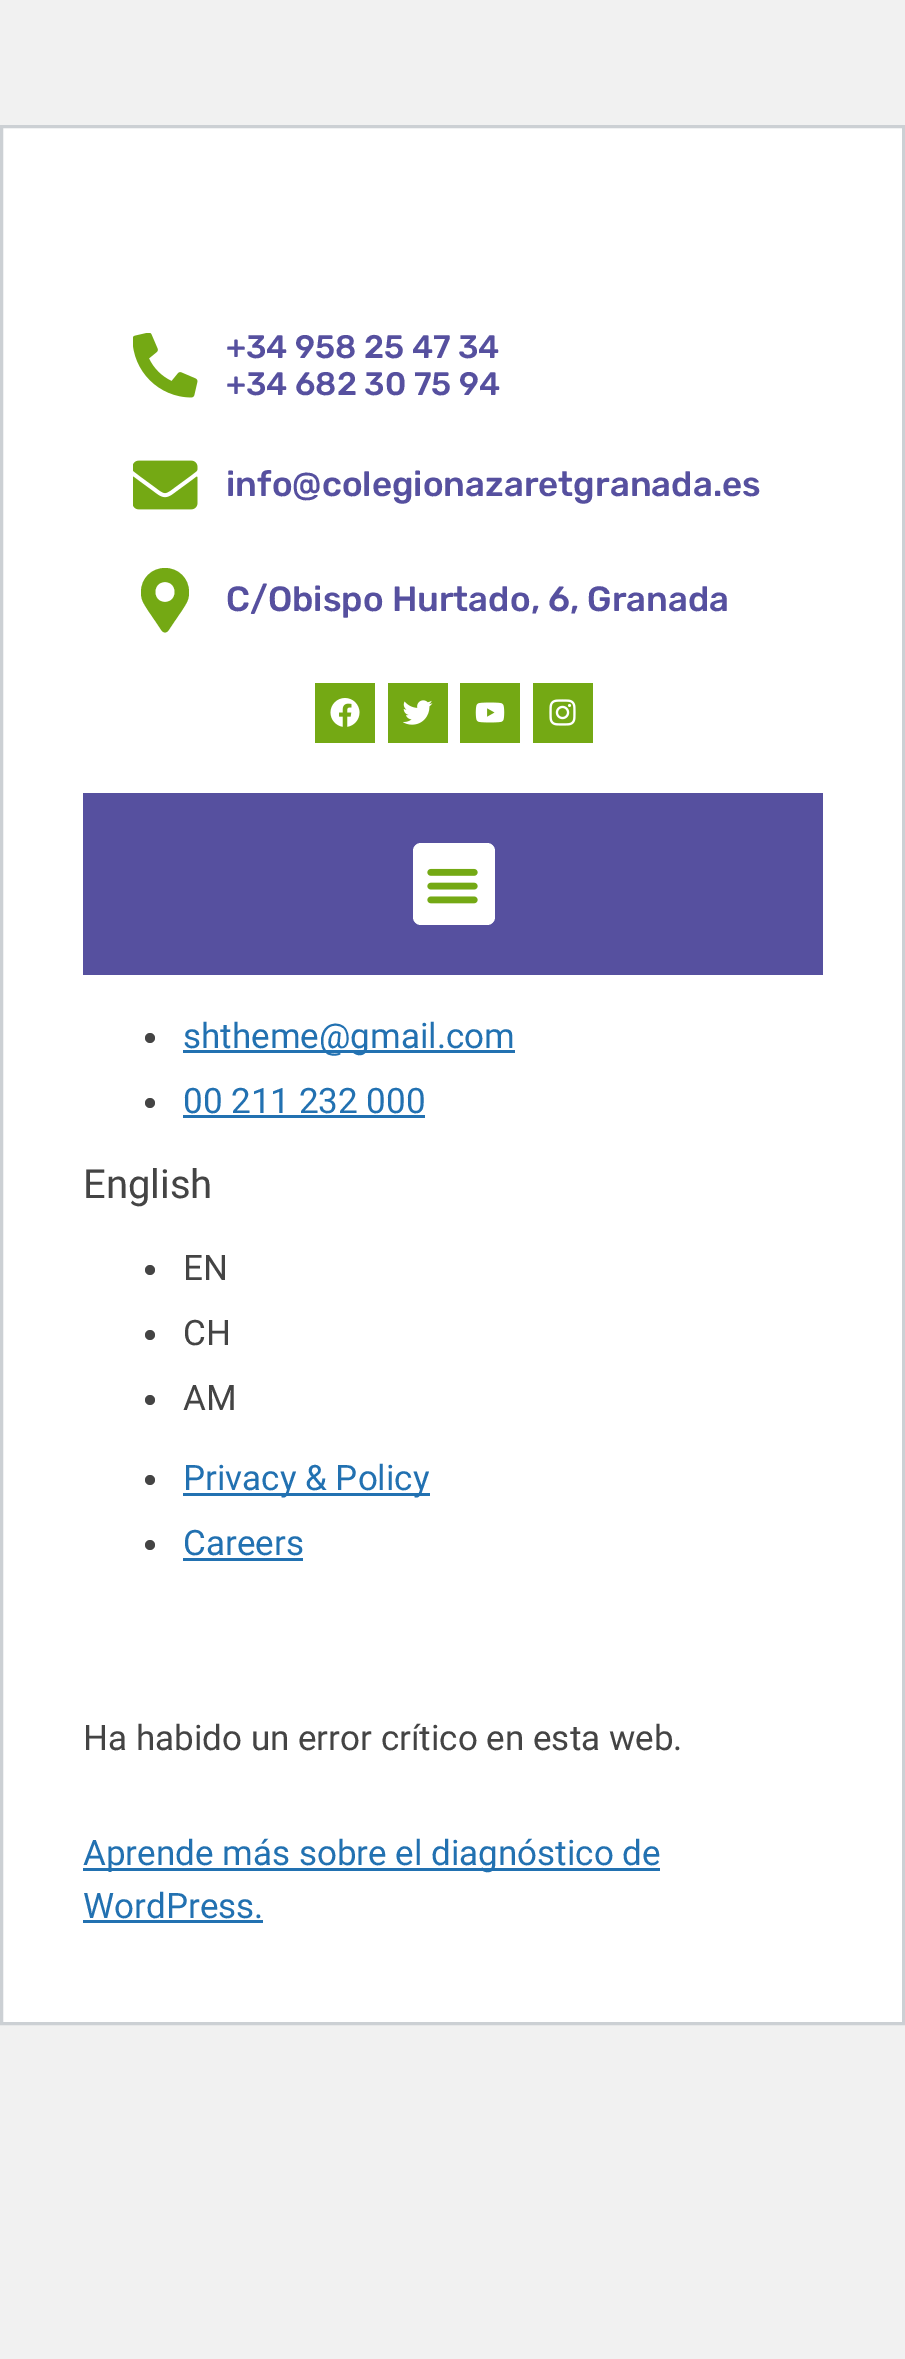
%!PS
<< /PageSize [905 2359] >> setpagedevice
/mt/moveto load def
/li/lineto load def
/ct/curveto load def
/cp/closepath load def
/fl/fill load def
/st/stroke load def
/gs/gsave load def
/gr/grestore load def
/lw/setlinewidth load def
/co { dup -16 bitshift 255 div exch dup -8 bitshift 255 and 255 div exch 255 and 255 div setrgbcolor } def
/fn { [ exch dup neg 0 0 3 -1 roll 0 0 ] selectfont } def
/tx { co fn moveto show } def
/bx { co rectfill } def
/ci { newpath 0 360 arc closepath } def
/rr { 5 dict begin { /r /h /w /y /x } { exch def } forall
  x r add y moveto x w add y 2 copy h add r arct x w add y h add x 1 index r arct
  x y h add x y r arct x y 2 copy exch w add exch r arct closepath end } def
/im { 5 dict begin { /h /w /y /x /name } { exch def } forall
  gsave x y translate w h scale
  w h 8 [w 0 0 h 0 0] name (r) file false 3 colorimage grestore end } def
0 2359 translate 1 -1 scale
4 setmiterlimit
0 0 905 2359 16#F1F1F1 bx
16#FFFFFF co
1.5 126.5 mt 903.5 126.5 li 903.5 2023.5 li 1.5 2023.5 li cp gs fl gr
16#CCD0D4 co
3 lw
st
(media/1.raw) 133 333 65 65 im
(media/2.raw) 133 460 65 50 im
16#74A914 co
162 631 mt 144 604 141 602 141 592 ct 141 578 152 568 165 568 ct 178 568 189 578 189 592 ct 189 602 186 604 168 631 ct 166 633 164 633 162 631 ct cp 165 602 mt 178 602 178 582 165 582 ct 152 582 152 602 165 602 ct cp fl
315 683 60 60 16#74A914 bx
(media/3.raw) 330 698 30 29 im
388 683 60 60 16#74A914 bx
(media/4.raw) 403 700 30 25 im
460 683 60 60 16#74A914 bx
(media/5.raw) 475 702 30 21 im
533 683 60 60 16#74A914 bx
(media/6.raw) 549 699 27 27 im
83 793 740 182 16#56509F bx
16#FFFFFF co
413 843 82 82 8 rr fl
(media/7.raw) 427 868 51 36 im
16#444444 co
150 1038 5 ci fl
183 1050 332 3 16#2271B1 bx
16#444444 co
150 1103 5 ci fl
183 1115 242 3 16#2271B1 bx
16#444444 co
150 1270 5 ci fl
150 1335 5 ci fl
150 1400 5 ci fl
150 1480 5 ci fl
183 1493 247 3 16#2271B1 bx
16#444444 co
150 1545 5 ci fl
183 1558 120 3 16#2271B1 bx
83 1868 577 3 16#2271B1 bx
83 1920 180 3 16#2271B1 bx
(+34 958 25 47 34) 226 358 /Rubik-Medium 32.5 16#56509F tx
(+34 682 30 75 94) 226 395 /Rubik-Medium 32.5 16#56509F tx
(info@colegionazaretgranada.es) 226 496 /Rubik-Medium 35 16#56509F tx
(C/Obispo Hurtado, 6, Granada) 226 611 /Rubik-Medium 35 16#56509F tx
(shtheme@gmail.com) 183 1048 /Roboto-Regular 35 16#2271B1 tx
(00 211 232 000) 183 1113 /Roboto-Regular 35 16#2271B1 tx
(English) 83 1198 /Roboto-Regular 40 16#444444 tx
(EN) 183 1280 /Roboto-Regular 35 16#444444 tx
(CH) 183 1345 /Roboto-Regular 35 16#444444 tx
(AM) 183 1410 /Roboto-Regular 35 16#444444 tx
(Privacy & Policy) 183 1490 /Roboto-Regular 35 16#2271B1 tx
(Careers) 183 1555 /Roboto-Regular 35 16#2271B1 tx
(Ha habido un error crítico en esta web.) 83 1750 /Roboto-Regular 35 16#444444 tx
(Aprende más sobre el diagnóstico de) 83 1865 /Roboto-Regular 35 16#2271B1 tx
(WordPress.) 83 1918 /Roboto-Regular 35 16#2271B1 tx
showpage
